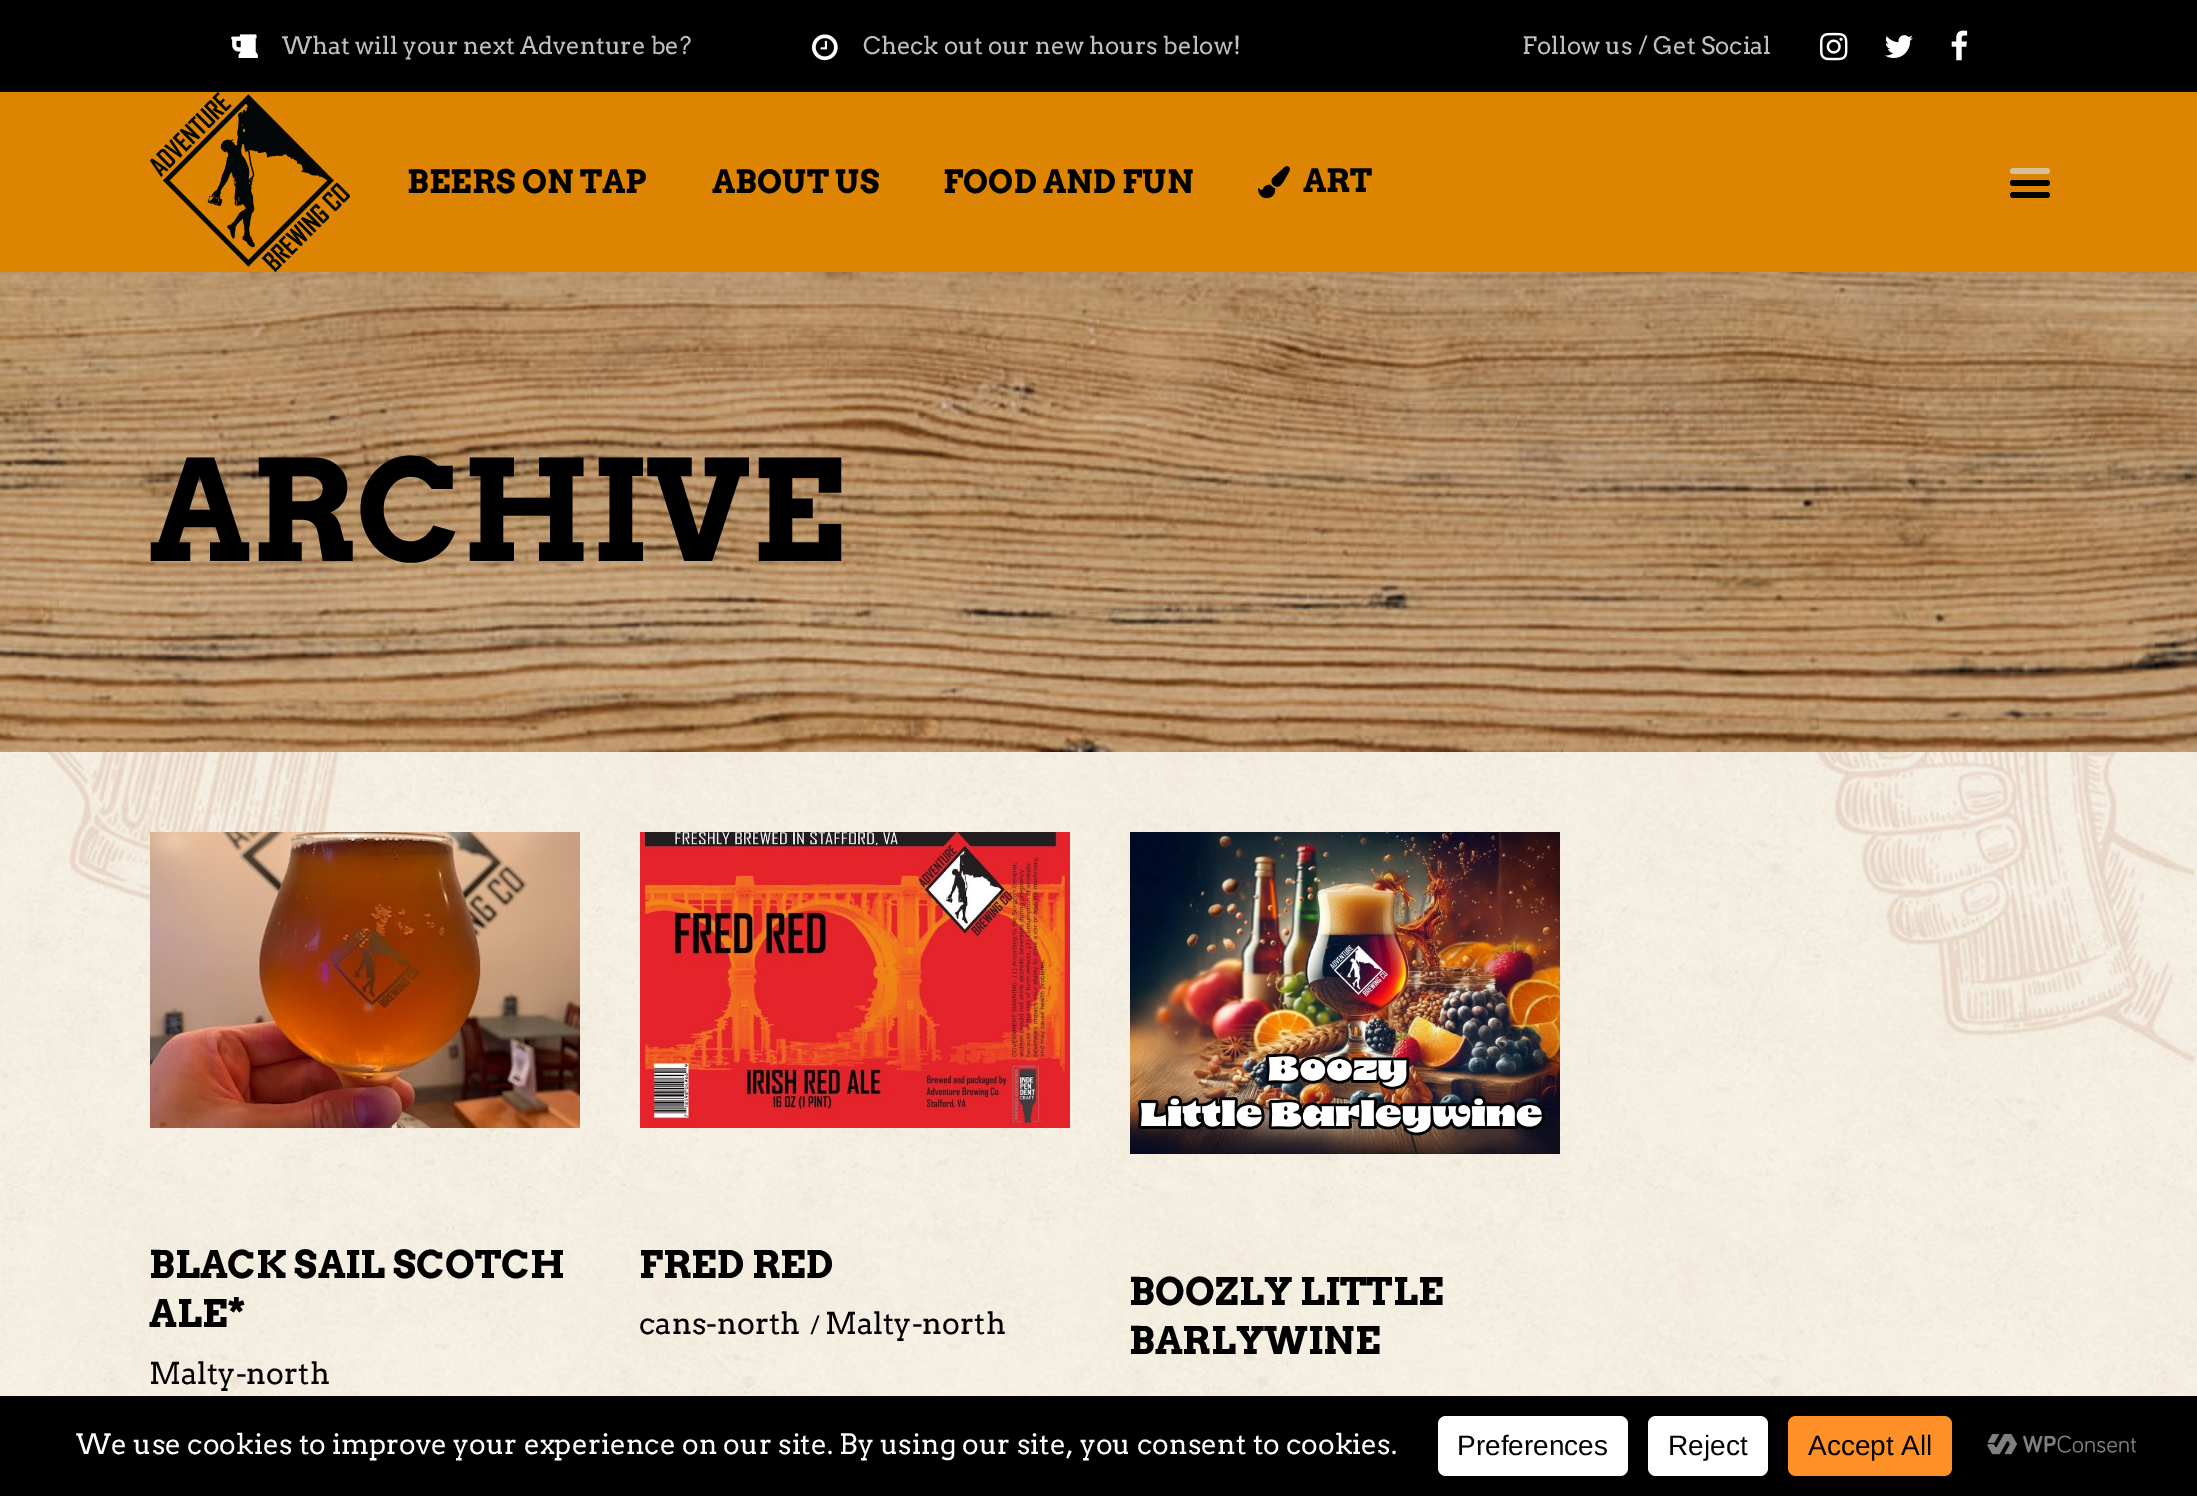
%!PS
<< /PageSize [2197 1496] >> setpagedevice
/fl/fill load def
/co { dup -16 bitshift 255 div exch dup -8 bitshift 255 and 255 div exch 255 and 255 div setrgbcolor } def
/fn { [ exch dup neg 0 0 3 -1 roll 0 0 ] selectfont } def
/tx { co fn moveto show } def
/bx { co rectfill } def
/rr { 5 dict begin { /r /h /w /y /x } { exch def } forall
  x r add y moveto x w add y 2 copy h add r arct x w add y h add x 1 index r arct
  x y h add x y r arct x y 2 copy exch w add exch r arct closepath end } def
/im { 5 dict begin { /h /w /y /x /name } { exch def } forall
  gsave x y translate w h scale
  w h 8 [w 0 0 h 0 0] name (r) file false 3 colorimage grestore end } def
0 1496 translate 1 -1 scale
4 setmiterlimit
0 0 2197 1496 16#FFFFFF bx
0 0 2197 92 16#000000 bx
(media/1.raw) 231 34 27 24 im
(media/2.raw) 812 34 26 27 im
(media/3.raw) 1820 32 28 29 im
(media/4.raw) 1885 35 28 23 im
(media/5.raw) 1951 30 17 31 im
0 92 2197 180 16#DD8502 bx
(media/6.raw) 150 92 200 180 im
(media/7.raw) 1258 166 32 33 im
16#D6C299 co
2010 168 40 6 3 rr fl
16#000000 co
2010 180 40 6 3 rr fl
2010 192 40 6 3 rr fl
(media/8.raw) 0 752 2197 644 im
(media/9.raw) 0 272 2197 480 im
(media/10.raw) 150 832 430 296 im
(media/11.raw) 640 832 430 296 im
(media/12.raw) 1130 832 430 322 im
0 1396 2197 100 16#000000 bx
16#FFFFFF co
1438 1416 190 60 8 rr fl
1648 1416 120 60 8 rr fl
16#FF9028 co
1788 1416 164 60 8 rr fl
(media/13.raw) 1987 1433 149 22 im
(What will your next Adventure be?) 282 54 /Arvo-Regular 24 16#BFBFBF tx
(Check out our new hours below!) 863 54 /Arvo-Regular 24 16#BFBFBF tx
(Follow us / Get Social) 1522 54 /Arvo-Regular 24 16#BFBFBF tx
(BEERS ON TAP) 407 193 /Arvo-Bold 32 16#000000 tx
(ABOUT US) 712 193 /Arvo-Bold 32 16#000000 tx
(FOOD AND FUN) 943 193 /Arvo-Bold 32 16#000000 tx
(ART) 1303 192 /Arvo-Bold 32 16#000000 tx
(ARCHIVE) 149 561 /Arvo-Bold 140 16#000000 tx
(BLACK SAIL SCOTCH) 149 1278 /Arvo-Bold 38 16#000000 tx
(ALE*) 149 1327 /Arvo-Bold 38 16#000000 tx
(Malty-north) 149 1384 /Arvo-Regular 30 16#000000 tx
(FRED RED) 639 1278 /Arvo-Bold 38 16#000000 tx
(cans-north) 639 1334 /Arvo-Regular 30 16#000000 tx
(/) 810 1334 /Arvo-Regular 24 16#000000 tx
(Malty-north) 825 1334 /Arvo-Regular 30 16#000000 tx
(BOOZLY LITTLE) 1129 1305 /Arvo-Bold 38 16#000000 tx
(BARLYWINE) 1129 1354 /Arvo-Bold 38 16#000000 tx
(We use cookies to improve your experience on our site. By using our site, you consent to cookies.) 76 1454 /Arvo-Regular 28 16#FFFFFF tx
(Preferences) 1457 1455 /LiberationSans-Regular 28 16#000000 tx
(Reject) 1668 1455 /LiberationSans-Regular 28 16#000000 tx
(Accept All) 1808 1455 /LiberationSans-Regular 28 16#000000 tx
showpage
